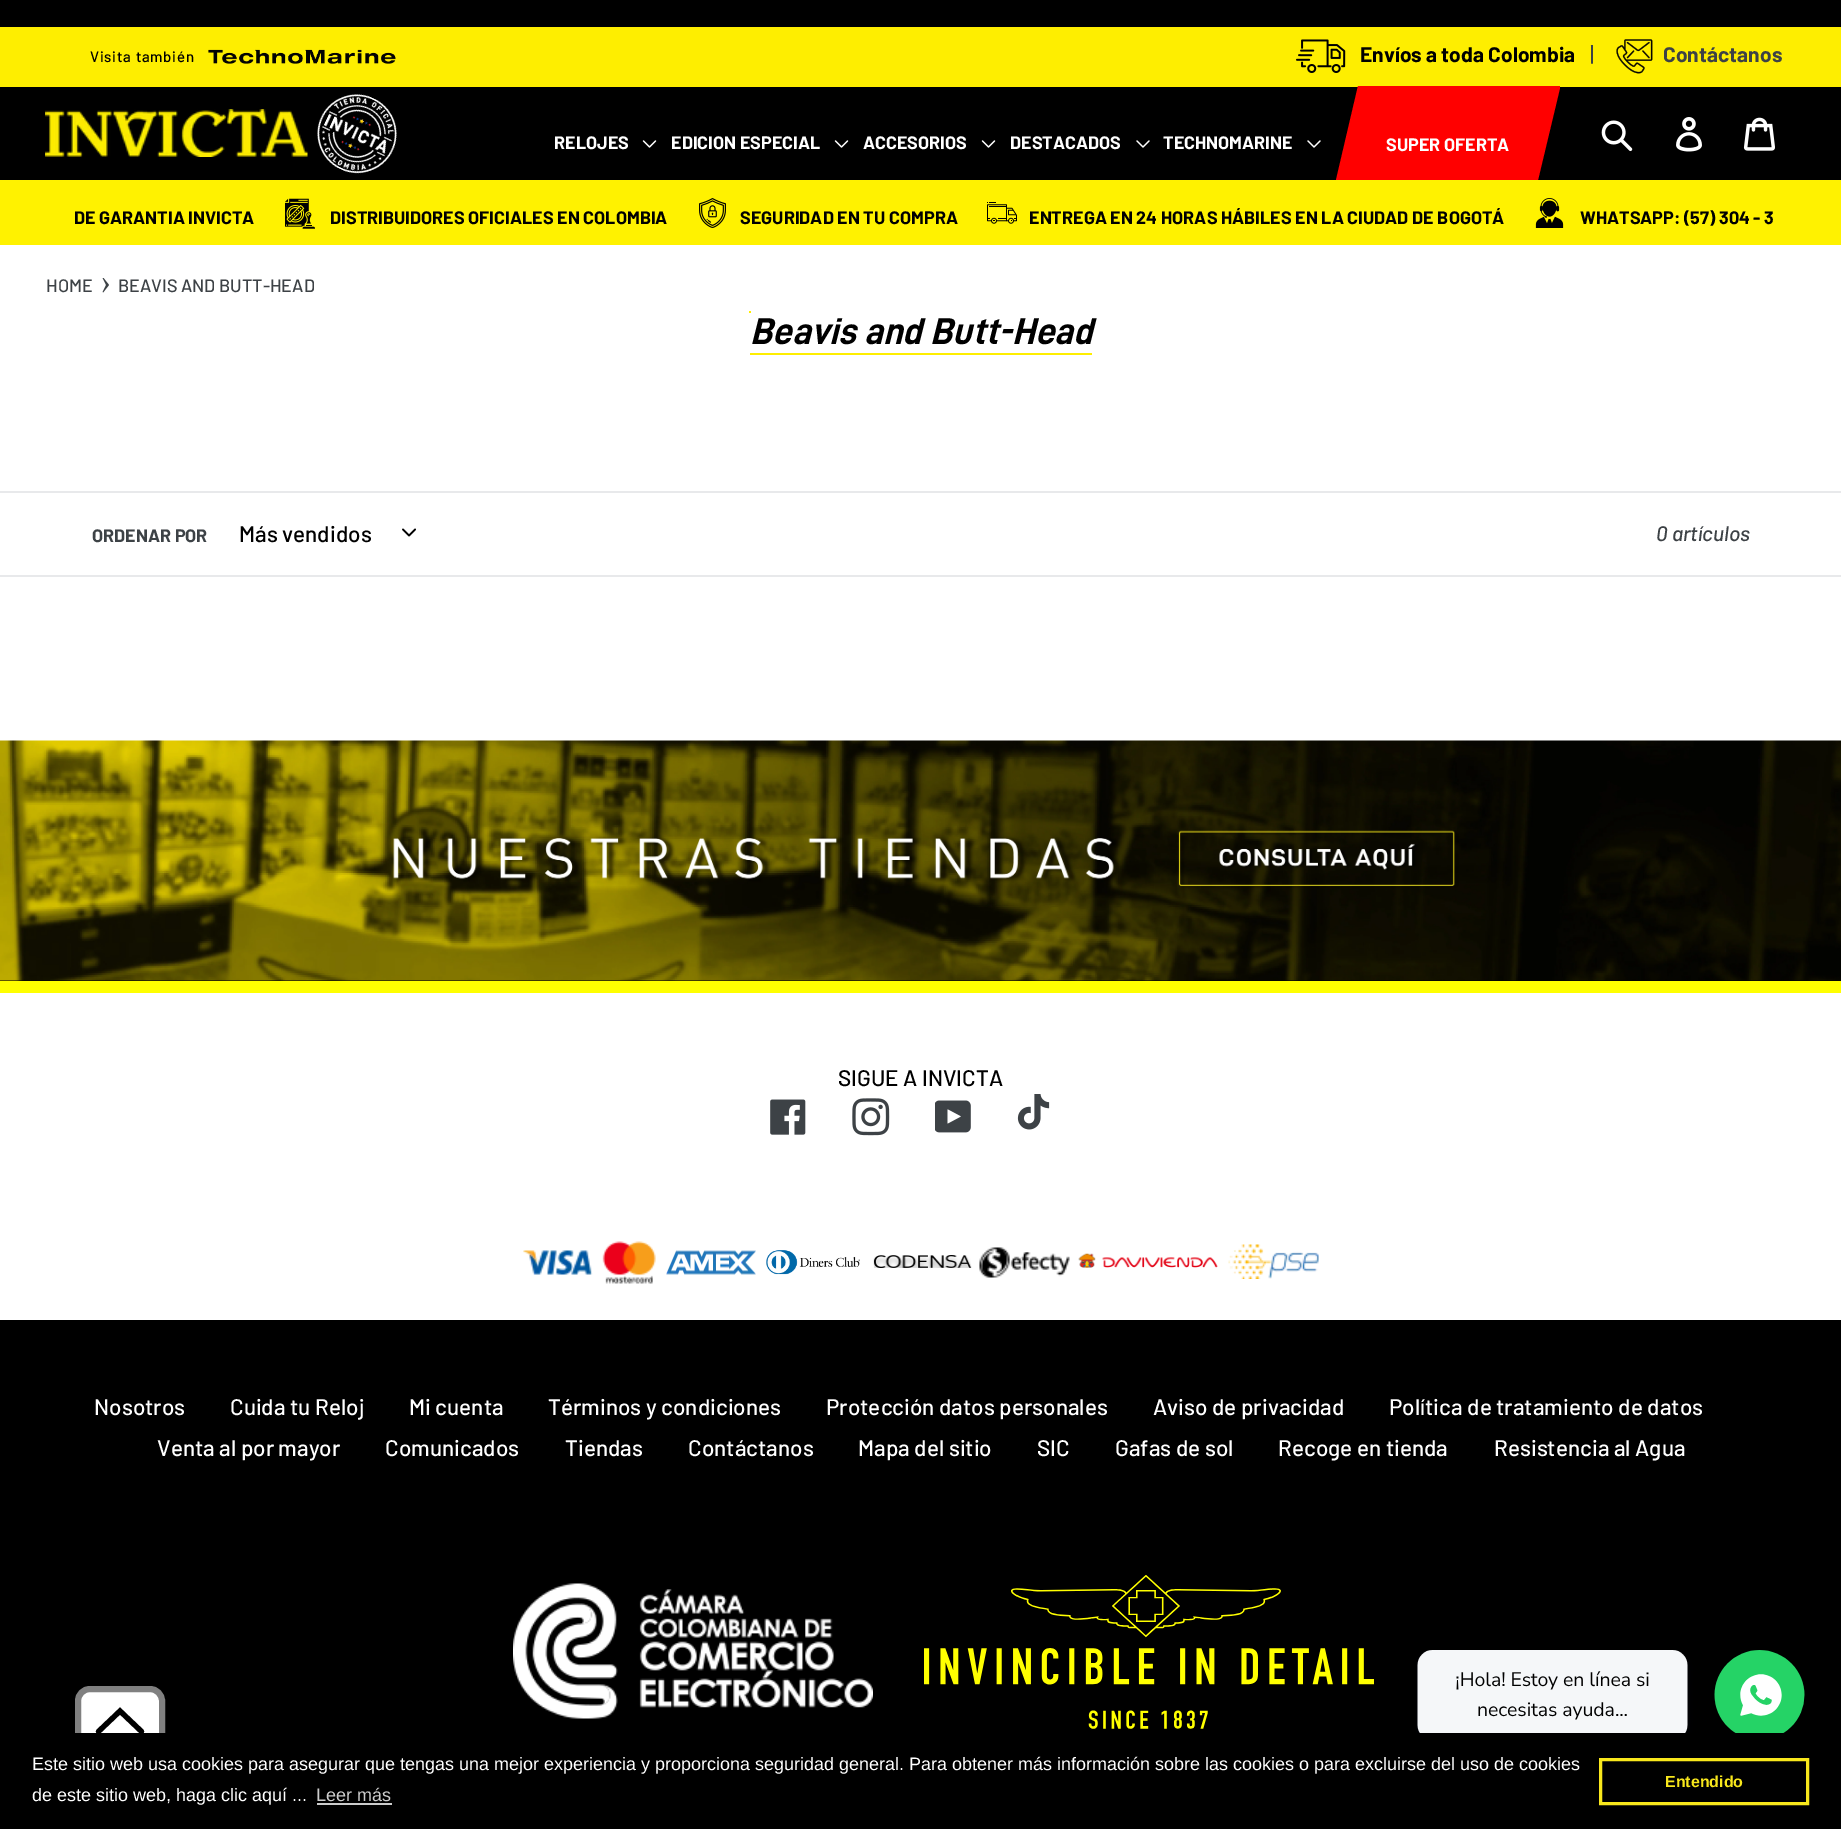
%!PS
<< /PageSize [1841 1829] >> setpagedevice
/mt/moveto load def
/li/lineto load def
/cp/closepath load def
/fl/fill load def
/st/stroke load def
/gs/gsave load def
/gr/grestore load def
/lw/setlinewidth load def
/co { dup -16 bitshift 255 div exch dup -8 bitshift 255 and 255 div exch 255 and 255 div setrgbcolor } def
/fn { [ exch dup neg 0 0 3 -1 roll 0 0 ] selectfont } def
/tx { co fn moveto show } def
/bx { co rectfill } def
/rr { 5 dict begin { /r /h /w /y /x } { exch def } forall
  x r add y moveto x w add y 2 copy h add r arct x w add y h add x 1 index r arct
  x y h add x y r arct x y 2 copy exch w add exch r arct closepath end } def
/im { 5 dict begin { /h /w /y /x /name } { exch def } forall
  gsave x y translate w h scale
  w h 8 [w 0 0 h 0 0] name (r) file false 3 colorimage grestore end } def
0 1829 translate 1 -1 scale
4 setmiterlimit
0 0 1841 1829 16#FFFFFF bx
0 0 1841 27 16#000000 bx
0 27 1841 60 16#FEEE00 bx
(media/1.raw) 208 49 188 15 im
(media/2.raw) 1296 39 50 34 im
(media/3.raw) 1616 39 37 35 im
0 87 1841 93 16#000000 bx
(media/4.raw) 45 109 263 48 im
(media/5.raw) 317 94 80 80 im
(media/6.raw) 642 140 15 8 im
(media/6.raw) 834 140 15 8 im
(media/6.raw) 981 140 15 8 im
(media/7.raw) 1136 140 14 8 im
(media/7.raw) 1307 140 14 8 im
16#FF0000 co
1336 180 mt 1358 86 li 1560 86 li 1560 88 li 1538 180 li cp fl
(media/8.raw) 1601 120 32 32 im
(media/9.raw) 1676 117 26 35 im
(media/10.raw) 1743 117 32 34 im
0 180 1841 65 16#FFF200 bx
(media/11.raw) 285 198 30 31 im
(media/12.raw) 699 198 27 30 im
(media/13.raw) 987 202 30 22 im
(media/14.raw) 1535 198 29 30 im
(media/15.raw) 102 278 7 15 im
749 311 2 2 16#FEEE00 bx
750 353 342 2 16#FEEE00 bx
0 491 1841 2 16#E8E9EB bx
0 575 1841 2 16#E8E9EB bx
(media/16.raw) 402 528 14 9 im
0 980 1841 753 16#000000 bx
16#FFFFFF co
78 1689 84 63 12 rr gs fl gr
16#808080 co
6 lw
st
16#000000 co
5.2 lw
1 setlinecap
98.5 1731.5 mt 120 1711 li 141.5 1731.5 li st
(media/17.raw) 0 740 1841 241 im
0 993 1841 327 16#FFFFFF bx
0 981 1841 12 16#FFFF00 bx
(media/18.raw) 770 1099 36 36 im
(media/19.raw) 852 1098 38 38 im
(media/20.raw) 935 1100 36 33 im
(media/21.raw) 1017 1094 33 36 im
(media/22.raw) 523 1250 70 25 im
(media/23.raw) 602 1241 54 43 im
(media/24.raw) 666 1250 90 25 im
(media/25.raw) 766 1250 94 25 im
(media/26.raw) 873 1255 99 13 im
(media/27.raw) 979 1247 91 31 im
(media/28.raw) 1078 1253 140 15 im
(media/29.raw) 1228 1244 91 35 im
(media/30.raw) 513 1583 360 136 im
(media/31.raw) 924 1575 450 154 im
(media/32.raw) 1416 1650 389 83 im
0 1733 1841 96 16#000000 bx
317 1803 75 2 16#CCCCCC bx
16#F8E71C co
3 lw
0 setlinecap
1600.5 1759.5 207 44 rectstroke
/Barlow-Medium 15 fn
16#000000 co
90 62 mt .75 0 (Visita también) ashow
(Envíos a toda Colombia) 1360 62 /Barlow-Bold 21 16#000000 tx
(|) 1590 62 /Barlow-Medium 22.5 16#3D4246 tx
(Contáctanos) 1663 62 /Barlow-Bold 21 16#3D4246 tx
(RELOJES) 554 149 /Barlow-Bold 18 16#FFFFFF tx
(EDICION ESPECIAL) 671 149 /Barlow-Bold 18 16#FFFFFF tx
(ACCESORIOS) 863 149 /Barlow-Bold 18 16#FFFFFF tx
(DESTACADOS) 1010 149 /Barlow-Bold 18 16#FFFFFF tx
(TECHNOMARINE) 1163 149 /Barlow-Bold 18 16#FFFFFF tx
(SUPER OFERTA) 1386 151 /Barlow-Bold 18 16#FFFFFF tx
(DE GARANTIA INVICTA) 74 224 /Barlow-Bold 18 16#000000 tx
(DISTRIBUIDORES OFICIALES EN COLOMBIA) 330 224 /Barlow-Bold 18 16#000000 tx
(SEGURIDAD EN TU COMPRA) 740 224 /Barlow-Bold 18 16#000000 tx
(ENTREGA EN 24 HORAS HÁBILES EN LA CIUDAD DE BOGOTÁ) 1029 224 /Barlow-Bold 18 16#000000 tx
(WHATSAPP: \(57\) 304 - 3) 1580 224 /Barlow-Bold 18 16#000000 tx
(HOME) 46 292 /Barlow-Medium 18 16#3D4246 tx
(BEAVIS AND BUTT-HEAD) 118 292 /Barlow-Medium 18 16#3D4246 tx
(Beavis and Butt-Head) 750 344 /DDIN-BoldItalic 37.5 16#000000 tx
(ORDENAR POR) 92 542 /Barlow-Bold 18 16#3D4246 tx
(Más vendidos) 239 542 /Barlow-Medium 22.5 16#000000 tx
(0 artículos) 1656 541 /Barlow-MediumItalic 21 16#3D4246 tx
(SIGUE A INVICTA) 838 1086 /Barlow-Medium 22.5 16#000000 tx
(Nosotros) 94 1415 /Barlow-Medium 22.5 16#FFFFFF tx
(Cuida tu Reloj) 230 1415 /Barlow-Medium 22.5 16#FFFFFF tx
(Mi cuenta) 409 1415 /Barlow-Medium 22.5 16#FFFFFF tx
(Términos y condiciones) 548 1415 /Barlow-Medium 22.5 16#FFFFFF tx
(Protección datos personales) 826 1415 /Barlow-Medium 22.5 16#FFFFFF tx
(Aviso de privacidad) 1153 1415 /Barlow-Medium 22.5 16#FFFFFF tx
(Política de tratamiento de datos) 1389 1415 /Barlow-Medium 22.5 16#FFFFFF tx
(Venta al por mayor) 157 1456 /Barlow-Medium 22.5 16#FFFFFF tx
(Comunicados) 385 1456 /Barlow-Medium 22.5 16#FFFFFF tx
(Tiendas) 565 1456 /Barlow-Medium 22.5 16#FFFFFF tx
(Contáctanos) 688 1456 /Barlow-Medium 22.5 16#FFFFFF tx
(Mapa del sitio) 858 1456 /Barlow-Medium 22.5 16#FFFFFF tx
(SIC) 1037 1456 /Barlow-Medium 22.5 16#FFFFFF tx
(Gafas de sol) 1115 1456 /Barlow-Medium 22.5 16#FFFFFF tx
(Recoge en tienda) 1278 1456 /Barlow-Medium 22.5 16#FFFFFF tx
(Resistencia al Agua) 1494 1456 /Barlow-Medium 22.5 16#FFFFFF tx
(Este sitio web usa cookies para asegurar que tengas una mejor experiencia y proporciona seguridad general. Para obtener más información sobre las cookies o para excluirse del uso de cookies) 32 1770 /LiberationSans-Regular 18 16#FFFFFF tx
(de este sitio web, haga clic aquí ...) 32 1801 /LiberationSans-Regular 18 16#FFFFFF tx
(Leer más) 316 1801 /LiberationSans-Regular 18 16#CCCCCC tx
(Entendido) 1665 1787 /LiberationSans-Bold 16 16#F8E71C tx
showpage
